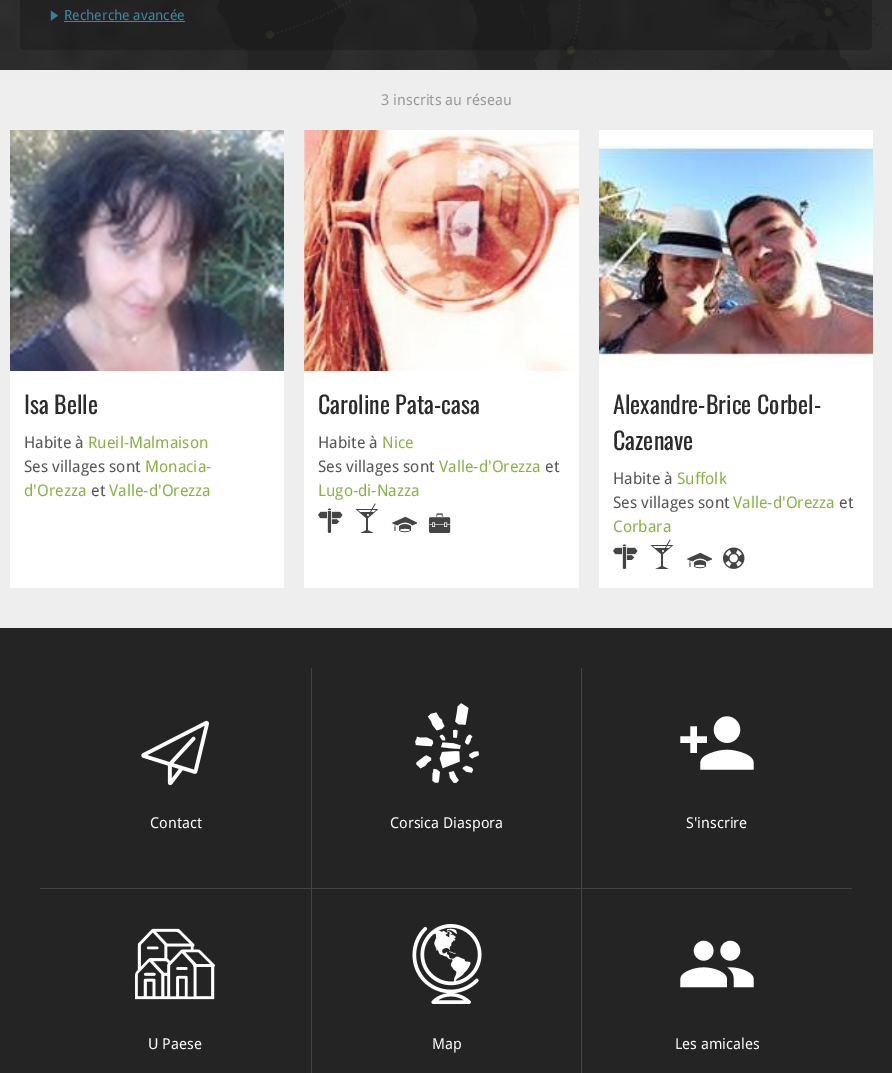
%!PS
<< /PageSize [892 1073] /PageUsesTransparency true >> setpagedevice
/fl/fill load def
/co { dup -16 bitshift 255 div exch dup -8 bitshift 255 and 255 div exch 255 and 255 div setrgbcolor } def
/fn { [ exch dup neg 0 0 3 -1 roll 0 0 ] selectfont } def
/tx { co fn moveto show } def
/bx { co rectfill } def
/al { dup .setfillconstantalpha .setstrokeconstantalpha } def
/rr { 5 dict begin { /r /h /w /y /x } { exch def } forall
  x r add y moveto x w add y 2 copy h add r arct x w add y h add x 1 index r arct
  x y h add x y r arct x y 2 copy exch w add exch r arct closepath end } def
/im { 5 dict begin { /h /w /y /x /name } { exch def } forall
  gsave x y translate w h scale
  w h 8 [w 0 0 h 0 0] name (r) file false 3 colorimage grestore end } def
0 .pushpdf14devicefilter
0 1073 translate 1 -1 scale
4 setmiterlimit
0 0 892 1073 16#EEEEEE bx
(media/1.raw) 0 0 892 70 im
(media/2.raw) 217 0 675 70 im
0.2 al
16#000000 co
20 -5 852 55 5 rr fl
1 al
(media/3.raw) 50 10 8 11 im
64 21 121 1 16#3F86A1 bx
10 371 274 217 16#FFFFFF bx
(media/4.raw) 10 130 274 241 im
304 371 275 217 16#FFFFFF bx
(media/5.raw) 304 130 275 241 im
(media/6.raw) 318 508 25 25 im
(media/7.raw) 355 503 24 30 im
(media/8.raw) 391 516 26 17 im
(media/9.raw) 429 513 22 20 im
599 130 274 458 16#FFFFFF bx
(media/10.raw) 599 146 274 220 im
(media/6.raw) 613 544 25 25 im
(media/7.raw) 650 539 24 30 im
(media/8.raw) 686 552 26 17 im
(media/11.raw) 723 547 22 22 im
0 628 892 445 16#242424 bx
40 888 812 1 16#444444 bx
(media/12.raw) 141 720 68 66 im
311 668 1 405 16#444444 bx
(media/13.raw) 415 703 64 80 im
581 668 1 405 16#444444 bx
(media/14.raw) 680 716 74 54 im
(media/15.raw) 135 928 80 72 im
(media/16.raw) 412 924 70 80 im
(media/17.raw) 680 940 74 48 im
(Recherche avancée) 64 20 /DroidSans-Regular 14 16#3F86A1 tx
(3 inscrits au réseau) 381 105 /DroidSans-Regular 15 16#999999 tx
(Isa Belle) 24 414 /Oswald-Regular 24 16#2B2B2B tx
(Habite à) 24 448 /DroidSans-Regular 16 16#555654 tx
(Rueil-Malmaison) 88 448 /DroidSans-Regular 16 16#88B247 tx
(Ses villages sont) 24 472 /DroidSans-Regular 16 16#555654 tx
(Monacia-) 145 472 /DroidSans-Regular 16 16#88B247 tx
(d'Orezza) 24 496 /DroidSans-Regular 16 16#88B247 tx
(et) 91 496 /DroidSans-Regular 16 16#555654 tx
(Valle-d'Orezza) 109 496 /DroidSans-Regular 16 16#88B247 tx
(Caroline Pata-casa) 318 414 /Oswald-Regular 24 16#2B2B2B tx
(Habite à) 318 448 /DroidSans-Regular 16 16#555654 tx
(Nice) 382 448 /DroidSans-Regular 16 16#88B247 tx
(Ses villages sont) 318 472 /DroidSans-Regular 16 16#555654 tx
(Valle-d'Orezza) 439 472 /DroidSans-Regular 16 16#88B247 tx
(et) 545 472 /DroidSans-Regular 16 16#555654 tx
(Lugo-di-Nazza) 318 496 /DroidSans-Regular 16 16#88B247 tx
(Alexandre-Brice Corbel-) 613 414 /Oswald-Regular 24 16#2B2B2B tx
(Cazenave) 613 450 /Oswald-Regular 24 16#2B2B2B tx
(Habite à) 613 484 /DroidSans-Regular 16 16#555654 tx
(Suffolk) 677 484 /DroidSans-Regular 16 16#88B247 tx
(Ses villages sont) 613 508 /DroidSans-Regular 16 16#555654 tx
(Valle-d'Orezza) 733 508 /DroidSans-Regular 16 16#88B247 tx
(et) 839 508 /DroidSans-Regular 16 16#555654 tx
(Corbara) 613 532 /DroidSans-Regular 16 16#88B247 tx
(Contact) 150 828 /DroidSans-Regular 15 16#FFFFFF tx
(Corsica Diaspora) 390 828 /DroidSans-Regular 15 16#FFFFFF tx
(S'inscrire) 686 828 /DroidSans-Regular 15 16#FFFFFF tx
(U Paese) 148 1049 /DroidSans-Regular 15 16#FFFFFF tx
(Map) 432 1049 /DroidSans-Regular 15 16#FFFFFF tx
(Les amicales) 675 1049 /DroidSans-Regular 15 16#FFFFFF tx
.poppdf14devicefilter showpage
